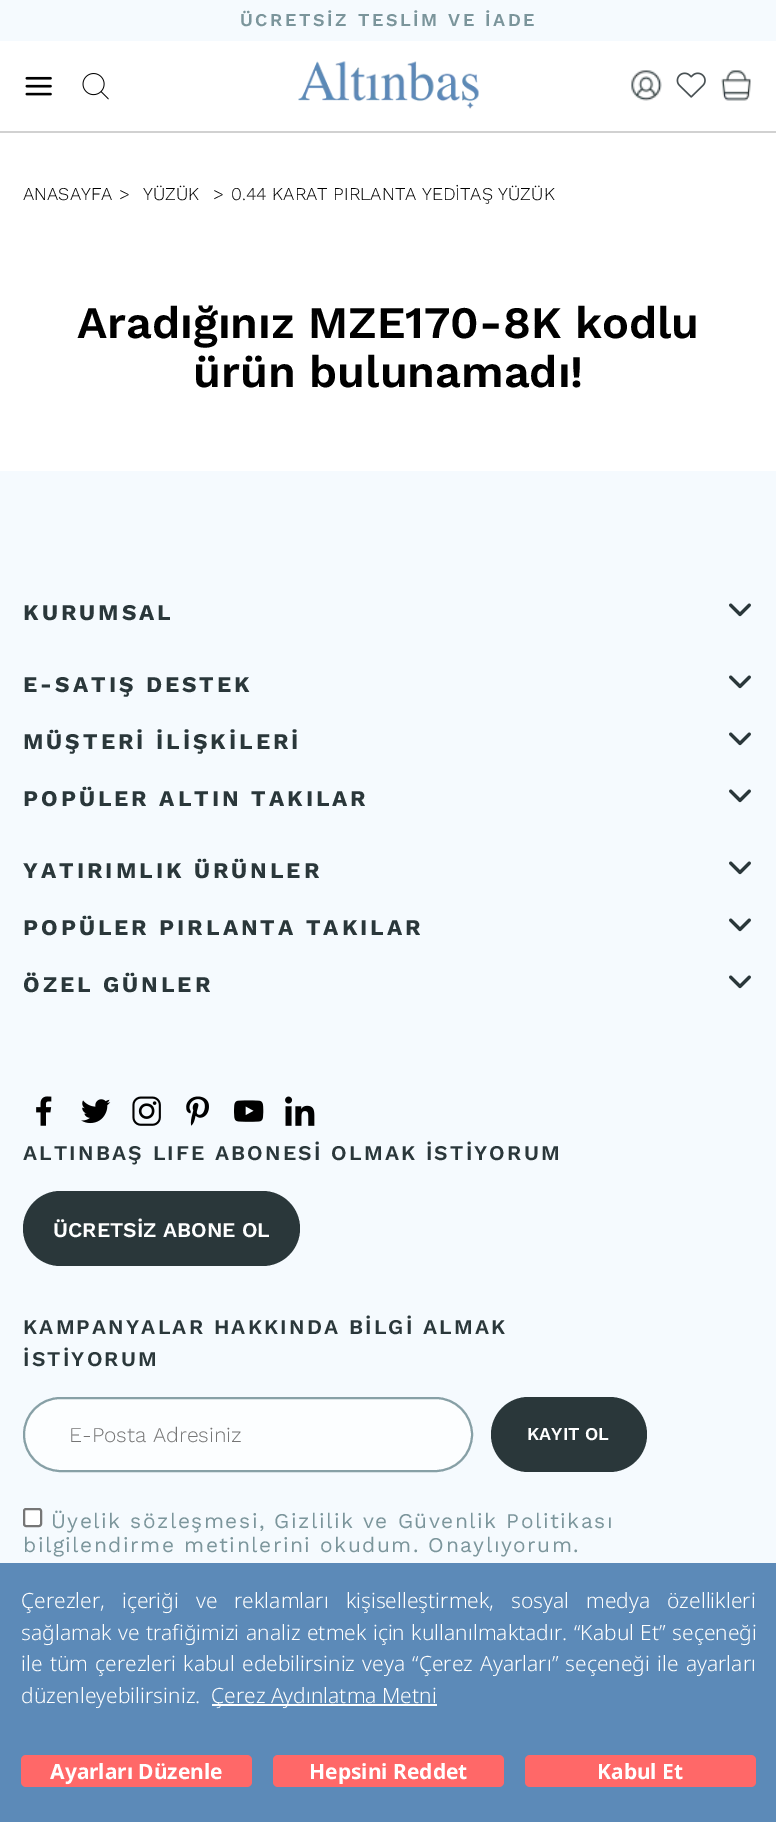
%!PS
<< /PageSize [776 1822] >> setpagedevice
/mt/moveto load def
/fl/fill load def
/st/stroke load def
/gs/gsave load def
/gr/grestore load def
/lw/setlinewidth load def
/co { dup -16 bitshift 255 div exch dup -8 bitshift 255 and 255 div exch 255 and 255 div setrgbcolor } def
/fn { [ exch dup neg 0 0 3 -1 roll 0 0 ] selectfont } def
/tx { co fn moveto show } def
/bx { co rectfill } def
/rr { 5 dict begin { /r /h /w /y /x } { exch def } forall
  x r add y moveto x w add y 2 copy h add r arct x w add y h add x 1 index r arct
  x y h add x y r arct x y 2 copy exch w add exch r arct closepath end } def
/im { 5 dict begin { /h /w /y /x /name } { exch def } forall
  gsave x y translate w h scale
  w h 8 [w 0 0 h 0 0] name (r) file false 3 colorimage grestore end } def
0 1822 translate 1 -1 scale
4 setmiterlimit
0 0 776 1822 16#FFFFFF bx
0 131 776 2 16#D1D1D1 bx
0 0 776 41 16#F5FAFE bx
(media/1.raw) 25 76 27 20 im
(media/2.raw) 82 73 27 27 im
(media/3.raw) 298 61 181 48 im
(media/4.raw) 631 70 31 31 im
(media/5.raw) 676 72 30 26 im
(media/6.raw) 721 70 30 31 im
0 471 776 1092 16#F5FAFE bx
(media/7.raw) 729 603 22 14 im
(media/7.raw) 729 675 22 14 im
(media/7.raw) 729 732 22 14 im
(media/7.raw) 729 789 22 14 im
(media/7.raw) 729 861 22 14 im
(media/7.raw) 729 918 22 14 im
(media/7.raw) 729 975 22 14 im
(media/8.raw) 36 1096 16 30 im
(media/9.raw) 81 1099 30 25 im
(media/10.raw) 132 1096 29 30 im
(media/11.raw) 186 1096 23 30 im
(media/12.raw) 234 1100 30 22 im
(media/13.raw) 285 1096 30 30 im
16#2A373A co
23 1191 277 75 37.5 rr fl
16#FCFEFF co
24 1398 448 73 36.5 rr gs fl gr
16#87A0A6 co
2 lw
st
16#2A373A co
491 1397 156 75 37.5 rr fl
16#FFFFFF co
24 1509 17 17 2 rr gs fl gr
16#767676 co
st
0 1563 776 259 16#5C8AB8 bx
212 1704 225 2 16#FFFFFF bx
16#FF6868 co
21 1755 231 32 5 rr fl
273 1755 231 32 5 rr fl
525 1755 231 32 5 rr fl
/WorkSans-SemiBold 18 fn
16#7B959B co
240 26 mt 2.6 0 (ÜCRETSİZ TESLİM VE İADE) ashow
(ANASAYFA) 23 200 /WorkSans-Light 18 16#000000 tx
(>) 119 200 /WorkSans-Light 18 16#000000 tx
(YÜZÜK) 143 200 /WorkSans-Light 18 16#000000 tx
(>) 213 200 /WorkSans-Light 18 16#000000 tx
(0.44 KARAT PIRLANTA YEDİTAŞ YÜZÜK) 231 200 /WorkSans-Light 18 16#000000 tx
(Aradığınız MZE170-8K kodlu) 77 338 /WorkSans-SemiBold 45 16#000000 tx
(ürün bulunamadı!) 193 387 /WorkSans-SemiBold 45 16#000000 tx
/WorkSans-Bold 22.5 fn
16#2A373A co
23 620 mt 3 0 (KURUMSAL) ashow
23 692 mt 3 0 (E-SATIŞ DESTEK) ashow
23 749 mt 3 0 (MÜŞTERİ İLİŞKİLERİ) ashow
23 806 mt 3 0 (POPÜLER ALTIN TAKILAR) ashow
23 878 mt 3 0 (YATIRIMLIK ÜRÜNLER) ashow
23 935 mt 3 0 (POPÜLER PIRLANTA TAKILAR) ashow
23 992 mt 3 0 (ÖZEL GÜNLER) ashow
/WorkSans-SemiBold 21 fn
23 1160 mt 2.15 0 (ALTINBAŞ LIFE ABONESİ OLMAK İSTİYORUM) ashow
(ÜCRETSİZ ABONE OL) 53 1237 /WorkSans-SemiBold 21 16#FFFFFF tx
16#2A373A co
23 1334 mt 2.15 0 (KAMPANYALAR HAKKINDA BİLGİ ALMAK) ashow
23 1366 mt 2.15 0 (İSTİYORUM) ashow
(E-Posta Adresiniz) 69 1442 /WorkSans-Light 21 16#757575 tx
(KAYIT OL) 527 1440 /WorkSans-SemiBold 18 16#FFFFFF tx
/WorkSans-Regular 21 fn
16#7B959B co
51 1528 mt 1.5 0 (Üyelik sözleşmesi, Gizlilik ve Güvenlik Politikası) ashow
23 1552 mt 1.5 0 (bilgilendirme metinlerini okudum. Onaylıyorum.) ashow
/NotoSans-Light 21 fn
16#FFFFFF co
21 1608 mt 11.5 0 32 (Çerezler, içeriği ve reklamları kişiselleştirmek, sosyal medya özellikleri) widthshow
21 1640 mt 1 0 32 (sağlamak ve trafiğimizi analiz etmek için kullanılmaktadır. “Kabul Et” seçeneği) widthshow
21 1671 mt 1.75 0 32 (ile tüm çerezleri kabul edebilirsiniz veya “Çerez Ayarları” seçeneği ile ayarları) widthshow
(düzenleyebilirsiniz.) 21 1703 /NotoSans-Light 21 16#FFFFFF tx
(Çerez Aydınlatma Metni) 211 1703 /NotoSans-Light 21 16#FFFFFF tx
(Ayarları Düzenle) 50 1779 /NotoSans-Bold 21 16#FFFFFF tx
(Hepsini Reddet) 309 1779 /NotoSans-Bold 21 16#FFFFFF tx
(Kabul Et) 597 1779 /NotoSans-Bold 21 16#FFFFFF tx
showpage
